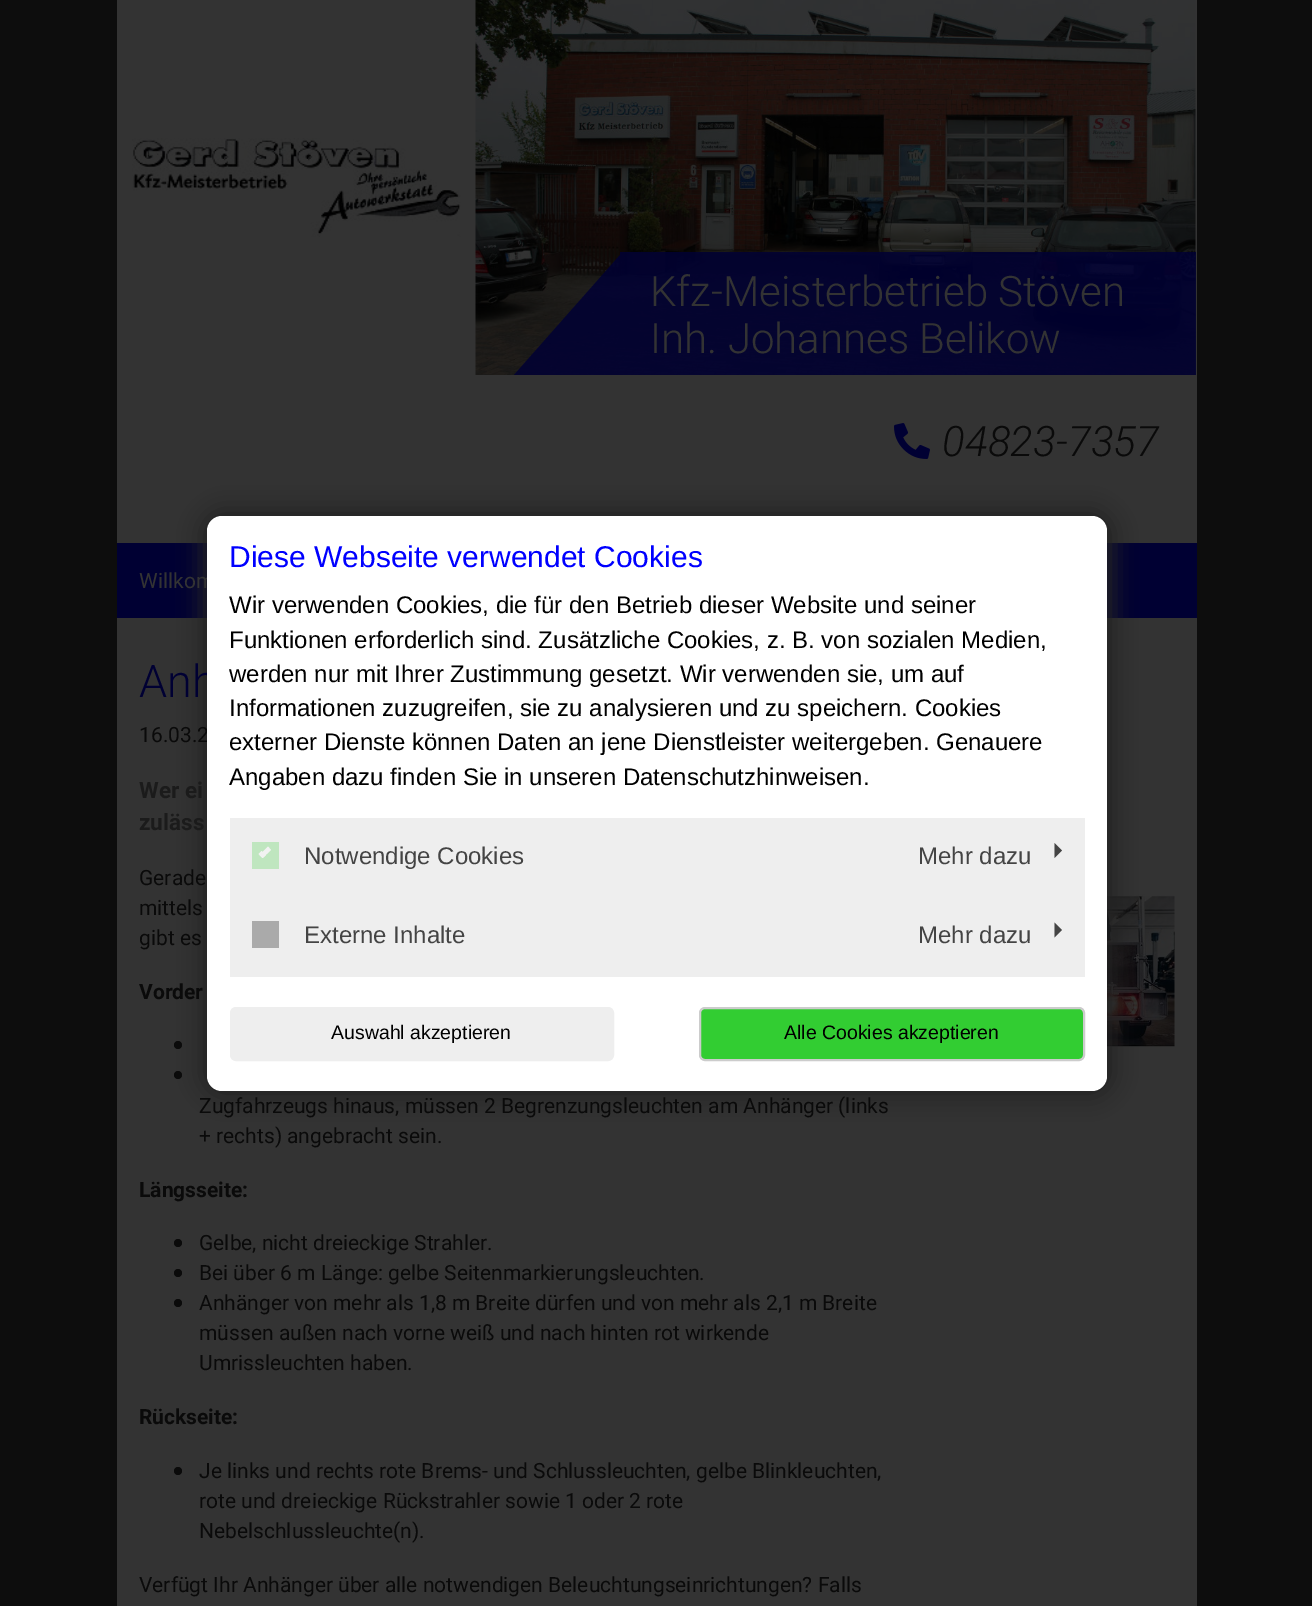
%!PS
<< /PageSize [1312 1606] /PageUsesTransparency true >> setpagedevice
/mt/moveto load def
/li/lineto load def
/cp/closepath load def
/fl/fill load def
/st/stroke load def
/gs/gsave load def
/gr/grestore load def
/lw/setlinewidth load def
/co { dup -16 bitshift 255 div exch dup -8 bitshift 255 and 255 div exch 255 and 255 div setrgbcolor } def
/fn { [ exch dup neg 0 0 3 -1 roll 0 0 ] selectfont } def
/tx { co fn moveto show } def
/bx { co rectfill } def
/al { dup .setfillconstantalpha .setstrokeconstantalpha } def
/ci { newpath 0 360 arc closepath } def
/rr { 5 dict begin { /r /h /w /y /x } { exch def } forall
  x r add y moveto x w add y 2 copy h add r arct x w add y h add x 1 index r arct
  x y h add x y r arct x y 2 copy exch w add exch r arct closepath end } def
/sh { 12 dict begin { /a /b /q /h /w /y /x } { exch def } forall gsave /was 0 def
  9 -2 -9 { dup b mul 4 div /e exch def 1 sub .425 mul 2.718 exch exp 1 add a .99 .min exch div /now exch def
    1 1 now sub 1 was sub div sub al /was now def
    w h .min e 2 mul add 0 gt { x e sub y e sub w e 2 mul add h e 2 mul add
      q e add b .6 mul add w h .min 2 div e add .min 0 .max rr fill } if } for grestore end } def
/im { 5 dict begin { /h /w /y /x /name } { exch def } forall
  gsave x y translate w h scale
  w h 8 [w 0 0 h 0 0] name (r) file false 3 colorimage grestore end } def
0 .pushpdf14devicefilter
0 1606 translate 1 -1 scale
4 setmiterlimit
0 0 1312 1606 16#0D0D0D bx
117 0 1080 1606 16#333333 bx
(media/1.raw) 132 138 329 99 im
(media/2.raw) 475 0 721 375 im
0.85 al
16#000033 co
620 375 mt 514 375 li 620 255 li cp fl
620 252 576 123 16#000033 bx
1 al
(media/3.raw) 894 423 36 36 im
117 543 1080 75 16#000033 bx
16#0A0A0A co
178 1045 4 ci fl
178 1075 4 ci fl
178 1243 4 ci fl
178 1273 4 ci fl
178 1303 4 ci fl
178 1471 4 ci fl
(media/4.raw) 1107 893 68 154 im
16#222222 co
200 509 915 589 23 11 1 sh
(Kfz-Meisterbetrieb Stöven) 650 306 /Roboto-Light 42 16#333333 tx
(Inh. Johannes Belikow) 650 353 /Roboto-Light 42 16#333333 tx
(04823-7357) 942 456 /Roboto-LightItalic 42 16#0A0A0A tx
(Willkom) 139 588 /Roboto-Regular 21 16#333333 tx
(Anh) 139 697 /Roboto-Light 45 16#000033 tx
(16.03.2) 139 742 /Roboto-Regular 21 16#0A0A0A tx
(Wer ei) 139 798 /Roboto-Bold 22.5 16#1B1B1B tx
(zuläss) 139 830 /Roboto-Bold 22.5 16#1B1B1B tx
(Gerade) 139 885 /Roboto-Regular 21 16#0A0A0A tx
(mittels) 139 915 /Roboto-Regular 21 16#0A0A0A tx
(gibt es) 139 945 /Roboto-Regular 21 16#0A0A0A tx
(Vorder) 139 999 /Roboto-Bold 21 16#0A0A0A tx
(Zugfahrzeugs hinaus, müssen 2 Begrenzungsleuchten am Anhänger \(links) 199 1113 /Roboto-Regular 21 16#0A0A0A tx
(+ rechts\) angebracht sein.) 199 1143 /Roboto-Regular 21 16#0A0A0A tx
(Längsseite:) 139 1197 /Roboto-Bold 21 16#0A0A0A tx
(Gelbe, nicht dreieckige Strahler.) 199 1250 /Roboto-Regular 21 16#0A0A0A tx
(Bei über 6 m Länge: gelbe Seitenmarkierungsleuchten.) 199 1280 /Roboto-Regular 21 16#0A0A0A tx
(Anhänger von mehr als 1,8 m Breite dürfen und von mehr als 2,1 m Breite) 199 1310 /Roboto-Regular 21 16#0A0A0A tx
(müssen außen nach vorne weiß und nach hinten rot wirkende) 199 1340 /Roboto-Regular 21 16#0A0A0A tx
(Umrissleuchten haben.) 199 1370 /Roboto-Regular 21 16#0A0A0A tx
(Rückseite:) 139 1424 /Roboto-Bold 21 16#0A0A0A tx
(Je links und rechts rote Brems- und Schlussleuchten, gelbe Blinkleuchten,) 199 1478 /Roboto-Regular 21 16#0A0A0A tx
(rote und dreieckige Rückstrahler sowie 1 oder 2 rote) 199 1508 /Roboto-Regular 21 16#0A0A0A tx
(Nebelschlussleuchte\(n\).) 199 1538 /Roboto-Regular 21 16#0A0A0A tx
(Verfügt Ihr Anhänger über alle notwendigen Beleuchtungseinrichtungen? Falls) 139 1592 /Roboto-Regular 21 16#0A0A0A tx
16#FFFFFF co
207 516 900 575 15 rr fl
(Diese Webseite verwendet Cookies) 229 567 /LiberationSans-Regular 30 16#0000FF tx
(Wir verwenden Cookies, die für den Betrieb dieser Website und seiner) 229 613 /LiberationSans-Regular 24 16#000000 tx
(Funktionen erforderlich sind. Zusätzliche Cookies, z. B. von sozialen Medien,) 229 648 /LiberationSans-Regular 24 16#000000 tx
(werden nur mit Ihrer Zustimmung gesetzt. Wir verwenden sie, um auf) 229 682 /LiberationSans-Regular 24 16#000000 tx
(Informationen zuzugreifen, sie zu analysieren und zu speichern. Cookies) 229 716 /LiberationSans-Regular 24 16#000000 tx
(externer Dienste können Daten an jene Dienstleister weitergeben. Genauere) 229 750 /LiberationSans-Regular 24 16#000000 tx
(Angaben dazu finden Sie in unseren Datenschutzhinweisen.) 229 785 /LiberationSans-Regular 24 16#000000 tx
230 818 855 159 16#EEEEEE bx
252 842 27 27 16#BFE6BF bx
16#F2F2F2 co
268 846.5 mt 271 850 li 262.5 858 li 259.5 855 li cp fl
261.5 851 mt 266 855 li 262.5 858 li 258.5 854 li cp fl
(Notwendige Cookies) 304 864 /LiberationSans-Regular 24 16#444444 tx
(Mehr dazu) 918 864 /LiberationSans-Regular 24 16#444444 tx
1054.5 858 mt 1054.5 843 li 1062 850.5 li cp fl
252 921 27 27 16#AAAAAA bx
(Externe Inhalte) 304 943 /LiberationSans-Regular 24 16#444444 tx
(Mehr dazu) 918 943 /LiberationSans-Regular 24 16#444444 tx
1054.5 937.5 mt 1054.5 922.5 li 1062 930 li cp fl
16#EEEEEE co
231 1008 382 52 5 rr gs fl gr
2 lw
st
(Auswahl akzeptieren) 331 1039 /LiberationSans-Regular 19.5 16#000000 tx
16#32CD32 co
700 1008 384 52 5 rr gs fl gr
16#CCCCCC co
st
(Alle Cookies akzeptieren) 784 1039 /LiberationSans-Regular 19.5 16#000000 tx
.poppdf14devicefilter showpage
